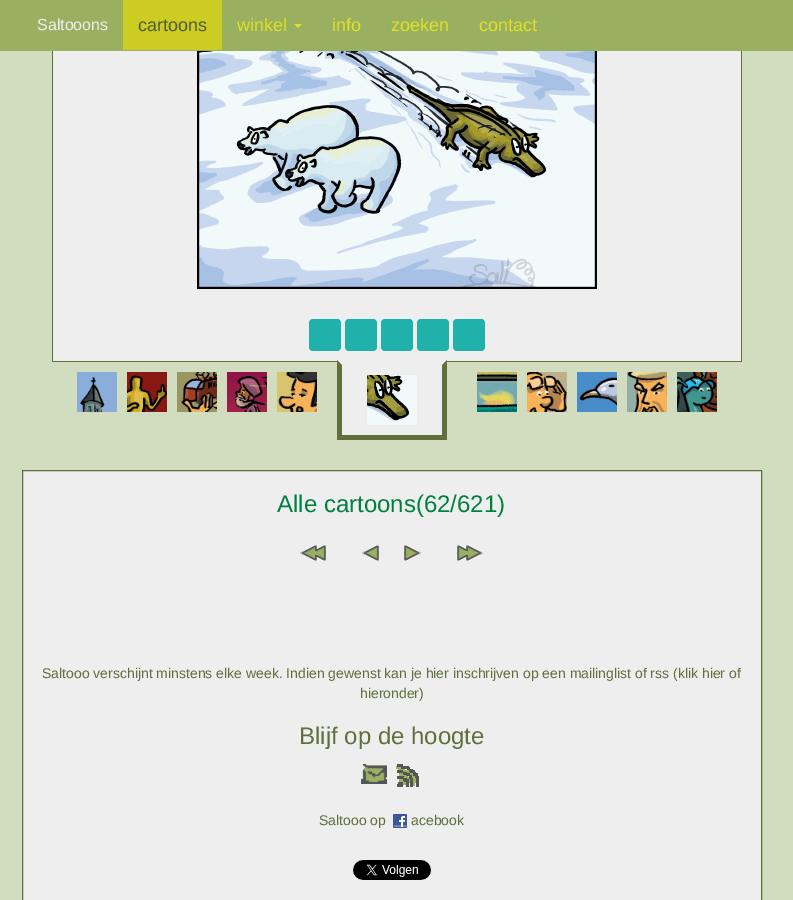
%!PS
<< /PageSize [793 900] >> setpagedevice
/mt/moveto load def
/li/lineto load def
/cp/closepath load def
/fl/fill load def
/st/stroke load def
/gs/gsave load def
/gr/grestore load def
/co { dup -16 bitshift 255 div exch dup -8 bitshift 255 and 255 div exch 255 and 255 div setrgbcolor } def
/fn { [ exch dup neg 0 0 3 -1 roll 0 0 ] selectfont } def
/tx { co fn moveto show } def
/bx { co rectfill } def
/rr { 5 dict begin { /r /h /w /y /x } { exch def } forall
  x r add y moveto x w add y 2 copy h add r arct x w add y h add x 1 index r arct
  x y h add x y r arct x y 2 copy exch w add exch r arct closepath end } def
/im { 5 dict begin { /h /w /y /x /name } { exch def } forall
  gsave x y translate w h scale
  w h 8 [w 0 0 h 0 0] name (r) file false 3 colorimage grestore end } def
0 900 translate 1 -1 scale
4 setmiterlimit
0 0 793 900 16#D2DCBE bx
0 0 793 51 16#99B060 bx
123 0 99 50 16#CCCC22 bx
16#E0E025 co
294 24 mt 302 24 li 298 28 li cp fl
53 51 688 310 16#EEEEEE bx
741 51 1 311 16#606F3C bx
52 51 1 238 16#606F3C bx
(media/1.raw) 197 51 400 238 im
52 361 690 1 16#606F3C bx
52 289 1 73 16#606F3C bx
16#20B2AA co
309 319 32 32 4 rr fl
345 319 32 32 4 rr fl
381 319 32 32 4 rr fl
417 319 32 32 4 rr fl
453 319 32 32 4 rr fl
(media/2.raw) 77 372 40 40 im
(media/3.raw) 127 372 40 40 im
(media/4.raw) 177 372 40 40 im
(media/5.raw) 227 372 40 40 im
(media/6.raw) 277 372 40 40 im
337 361 110 74 16#EEEEEE bx
16#606F3C co
447 360 mt 447 440 li 442 435 li 442 365 li cp fl
337 435 110 5 16#606F3C bx
337 440 mt 337 360 li 342 365 li 342 435 li cp fl
(media/7.raw) 367 375 50 50 im
(media/8.raw) 477 372 40 40 im
(media/9.raw) 527 372 40 40 im
(media/10.raw) 577 372 40 40 im
(media/11.raw) 627 372 40 40 im
(media/12.raw) 677 372 40 40 im
16#EEEEEE co
22.5 470.5 mt 761.5 470.5 li 761.5 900.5 li 22.5 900.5 li cp gs fl gr
16#606F3C co
st
(media/13.raw) 300 544 26 18 im
(media/14.raw) 362 544 17 18 im
(media/15.raw) 404 544 17 18 im
(media/16.raw) 457 544 26 18 im
(media/17.raw) 361 764 26 20 im
(media/18.raw) 396 764 23 23 im
(media/19.raw) 393 814 14 14 im
(media/20.raw) 353 860 78 20 im
(Saltooons) 37 30 /LiberationSans-Regular 16 16#EEEEEE tx
(cartoons) 138 31 /LiberationSans-Regular 18 16#505C32 tx
(winkel) 237 31 /LiberationSans-Regular 18 16#E0E025 tx
(info) 332 31 /LiberationSans-Regular 18 16#E0E025 tx
(zoeken) 391 31 /LiberationSans-Regular 18 16#E0E025 tx
(contact) 479 31 /LiberationSans-Regular 18 16#E0E025 tx
(Alle cartoons\(62/621\)) 277 512 /LiberationSans-Regular 24 16#008040 tx
(Saltooo verschijnt minstens elke week. Indien gewenst kan je hier inschrijven op een mailinglist of rss \(klik hier of) 42 678 /LiberationSans-Regular 14 16#606F3C tx
(hieronder\)) 360 698 /LiberationSans-Regular 14 16#606F3C tx
(Blijf op de hoogte) 299 744 /LiberationSans-Regular 24 16#606F3C tx
(Saltooo op) 319 825 /LiberationSans-Regular 14 16#606F3C tx
(acebook) 411 825 /LiberationSans-Regular 14 16#606F3C tx
showpage
